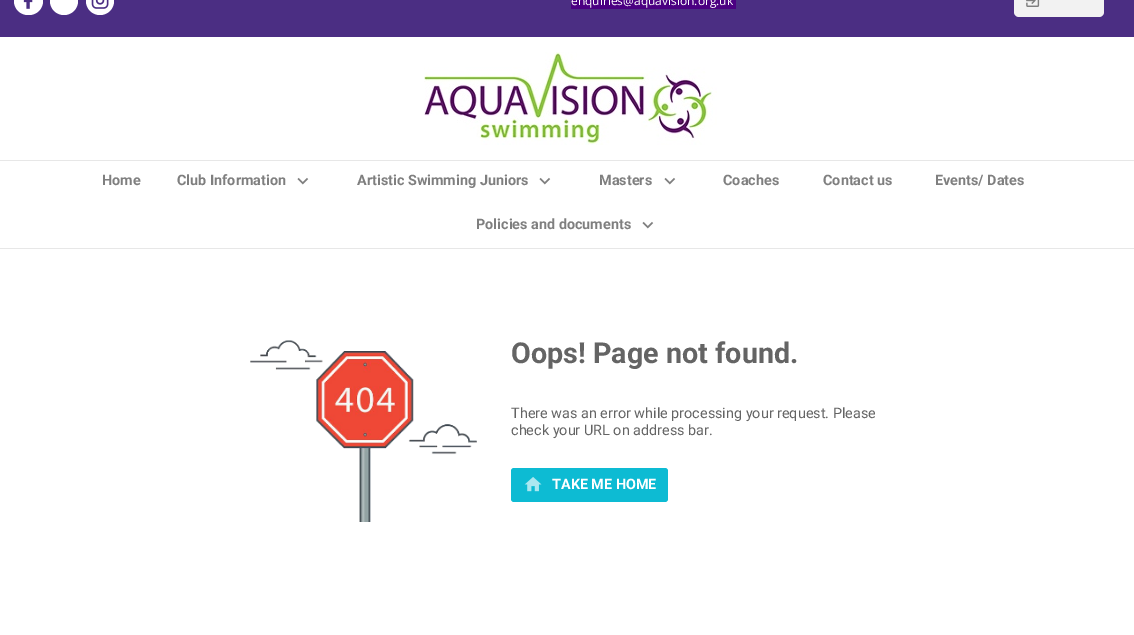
%!PS
<< /PageSize [1134 635] >> setpagedevice
/fl/fill load def
/co { dup -16 bitshift 255 div exch dup -8 bitshift 255 and 255 div exch 255 and 255 div setrgbcolor } def
/fn { [ exch dup neg 0 0 3 -1 roll 0 0 ] selectfont } def
/tx { co fn moveto show } def
/bx { co rectfill } def
/ci { newpath 0 360 arc closepath } def
/rr { 5 dict begin { /r /h /w /y /x } { exch def } forall
  x r add y moveto x w add y 2 copy h add r arct x w add y h add x 1 index r arct
  x y h add x y r arct x y 2 copy exch w add exch r arct closepath end } def
/im { 5 dict begin { /h /w /y /x /name } { exch def } forall
  gsave x y translate w h scale
  w h 8 [w 0 0 h 0 0] name (r) file false 3 colorimage grestore end } def
0 635 translate 1 -1 scale
4 setmiterlimit
0 0 1134 635 16#FFFFFF bx
0 0 1134 37 16#4B2E83 bx
16#FFFFFF co
14 -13 29 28 14 rr fl
(media/1.raw) 23 0 10 9 im
64 1 14 ci fl
100 1 14 ci fl
(media/2.raw) 91 0 18 9 im
571 0 162 9 16#4B0082 bx
16#F2F2F2 co
1014 -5 90 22 5 rr fl
(media/3.raw) 1026 0 14 7 im
(media/4.raw) 424 52 293 93 im
0 160 1134 1 16#E7E7E7 bx
0 248 1134 1 16#E7E7E7 bx
(media/5.raw) 297 177 12 8 im
(media/5.raw) 539 177 12 8 im
(media/5.raw) 664 177 12 8 im
(media/5.raw) 642 221 12 8 im
(media/6.raw) 250 340 227 182 im
16#0DBBD3 co
511 468 157 34 3 rr fl
(media/7.raw) 524 477 18 15 im
(enquiries@aquavision.org.uk) 571 5 /OpenSans-Regular 12 16#FFFFFF tx
733 0 3 9 16#4B0082 bx
(Home) 102 185 /Roboto-Bold 14.4 16#7F7F7F tx
(Club Information) 177 185 /Roboto-Bold 14.4 16#7F7F7F tx
(Artistic Swimming Juniors) 357 185 /Roboto-Bold 14.4 16#7F7F7F tx
(Masters) 599 185 /Roboto-Bold 14.4 16#7F7F7F tx
(Coaches) 723 185 /Roboto-Bold 14.4 16#7F7F7F tx
(Contact us) 823 185 /Roboto-Bold 14.4 16#7F7F7F tx
(Events/ Dates) 935 185 /Roboto-Bold 14.4 16#7F7F7F tx
(Policies and documents) 476 229 /Roboto-Bold 14.4 16#7F7F7F tx
(Oops! Page not found.) 511 363 /Roboto-Bold 28.75 16#646464 tx
(There was an error while processing your request. Please) 511 418 /Roboto-Regular 14.4 16#646464 tx
(check your URL on address bar.) 511 435 /Roboto-Regular 14.4 16#646464 tx
(TAKE ME HOME) 552 489 /Roboto-Bold 14.4 16#FFFFFF tx
showpage
